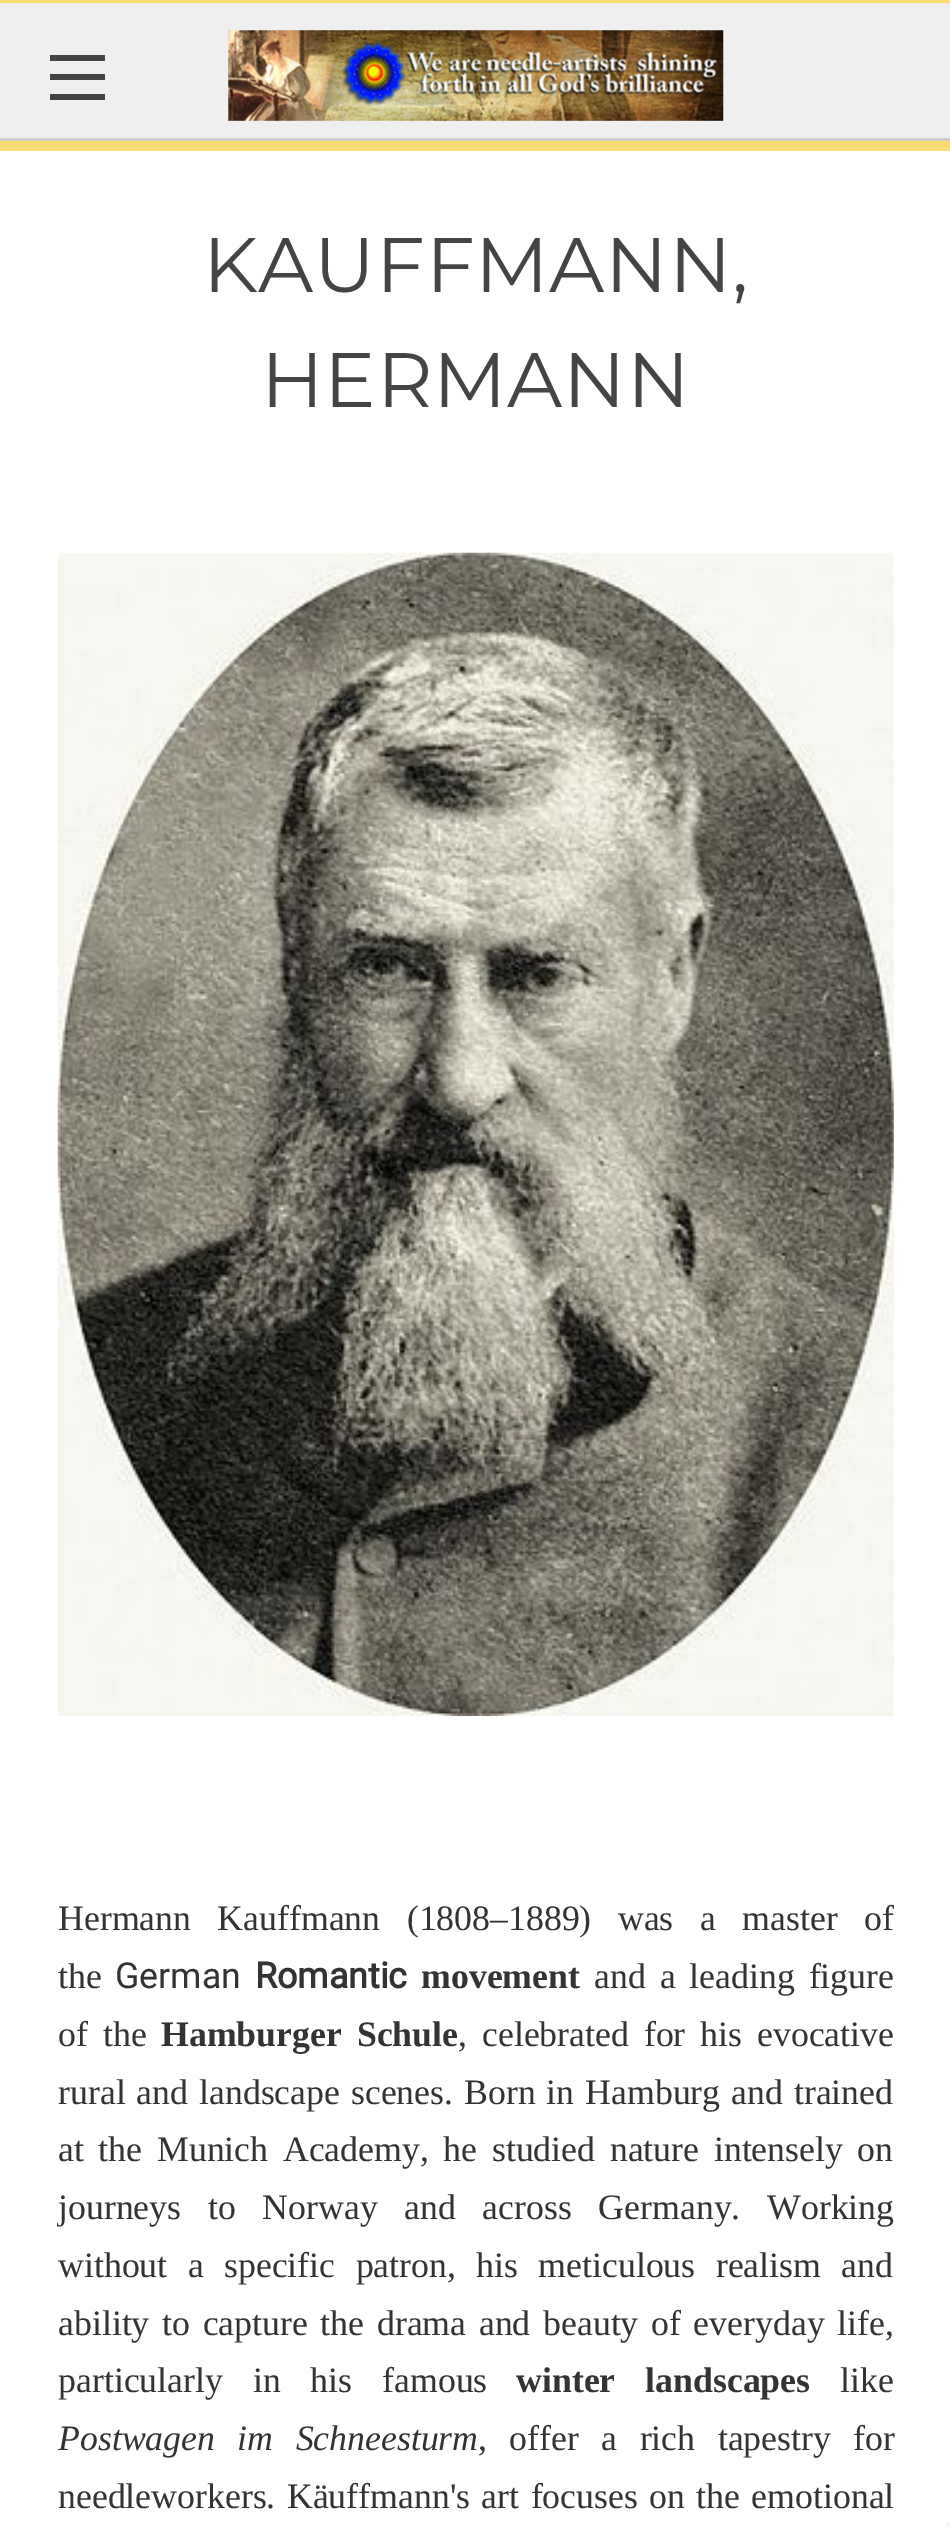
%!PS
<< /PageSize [950 2527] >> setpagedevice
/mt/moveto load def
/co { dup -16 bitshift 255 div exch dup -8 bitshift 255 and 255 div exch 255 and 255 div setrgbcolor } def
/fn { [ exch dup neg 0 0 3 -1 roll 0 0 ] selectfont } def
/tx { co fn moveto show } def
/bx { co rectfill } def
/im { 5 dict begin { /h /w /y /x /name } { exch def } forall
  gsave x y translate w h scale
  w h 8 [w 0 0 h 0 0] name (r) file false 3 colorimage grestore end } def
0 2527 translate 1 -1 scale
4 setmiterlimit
0 0 950 2527 16#FFFFFF bx
0 0 950 151 16#F7DB73 bx
0 3 950 135 16#EFEFEF bx
0 138 950 3 16#CCCCCC bx
50 74 55 6 16#444444 bx
50 55 55 6 16#444444 bx
50 94 55 6 16#444444 bx
(media/1.raw) 228 30 496 91 im
(media/2.raw) 57 552 837 1164 im
946 2522 4 5 16#F5F5F5 bx
/Montserrat-Thin 77 fn
16#444444 co
203 292 mt .75 0 (KAUFFMANN,) ashow
261 407 mt .75 0 (HERMANN) ashow
/LiberationSerif-Regular 35.75 fn
16#333333 co
58 1930 mt 17.5 0 32 (Hermann Kauffmann \(1808–1889\) was a master of) widthshow
(the) 58 1988 /LiberationSerif-Regular 35.75 16#333333 tx
(German) 115 1988 /Roboto-Regular 35.75 16#333333 tx
(Romantic) 255 1988 /Roboto-Bold 35.75 16#333333 tx
(movement) 421 1988 /LiberationSerif-Bold 35.75 16#333333 tx
/LiberationSerif-Regular 35.75 fn
594 1988 mt 5 0 32 (and a leading figure) widthshow
58 2046 mt 6 0 32 (of the) widthshow
/LiberationSerif-Bold 35.75 fn
161 2046 mt 6 0 32 (Hamburger Schule) widthshow
/LiberationSerif-Regular 35.75 fn
458 2046 mt 6 0 32 (, celebrated for his evocative) widthshow
58 2104 mt 2 0 32 (rural and landscape scenes. Born in Hamburg and trained) widthshow
58 2161 mt 5.75 0 32 (at the Munich Academy, he studied nature intensely on) widthshow
58 2219 mt 17.75 0 32 (journeys to Norway and across Germany. Working) widthshow
58 2277 mt 11.5 0 32 (without a specific patron, his meticulous realism and) widthshow
58 2335 mt 3.75 0 32 (ability to capture the drama and beauty of everyday life,) widthshow
58 2392 mt 21 0 32 (particularly in his famous) widthshow
/LiberationSerif-Bold 35.75 fn
516 2392 mt 21 0 32 (winter landscapes) widthshow
(like) 840 2392 /LiberationSerif-Regular 35.75 16#333333 tx
/LiberationSerif-Italic 35.75 fn
58 2450 mt 13.5 0 32 (Postwagen im Schneesturm) widthshow
/LiberationSerif-Regular 35.75 fn
478 2450 mt 13.5 0 32 (, offer a rich tapestry for) widthshow
58 2508 mt 2.5 0 32 (needleworkers. Käuffmann's art focuses on the emotional) widthshow
showpage
